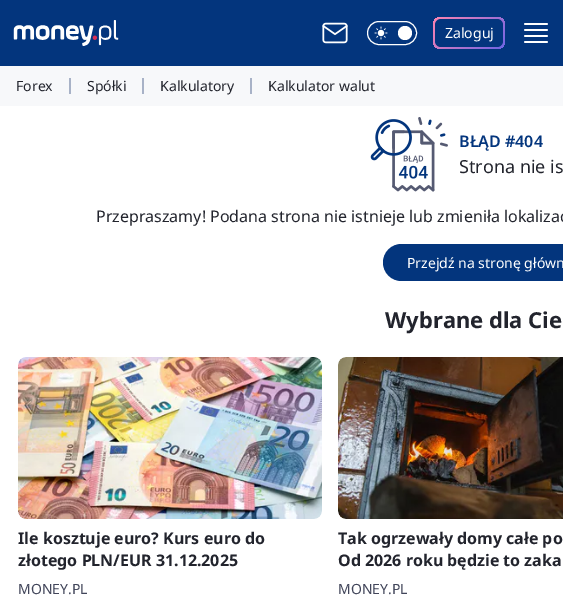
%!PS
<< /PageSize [563 606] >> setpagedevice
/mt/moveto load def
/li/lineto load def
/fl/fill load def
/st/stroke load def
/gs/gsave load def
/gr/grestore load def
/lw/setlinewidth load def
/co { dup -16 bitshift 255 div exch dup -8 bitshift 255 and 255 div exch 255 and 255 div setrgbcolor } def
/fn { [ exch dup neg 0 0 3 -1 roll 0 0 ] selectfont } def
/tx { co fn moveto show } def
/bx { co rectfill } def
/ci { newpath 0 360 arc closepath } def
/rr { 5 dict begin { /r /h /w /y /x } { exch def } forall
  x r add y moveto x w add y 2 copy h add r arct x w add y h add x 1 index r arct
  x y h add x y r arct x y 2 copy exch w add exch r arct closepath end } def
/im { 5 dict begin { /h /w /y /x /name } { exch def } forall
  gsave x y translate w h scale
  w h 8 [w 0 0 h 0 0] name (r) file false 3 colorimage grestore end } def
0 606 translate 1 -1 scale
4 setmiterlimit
0 0 563 606 16#FFFFFF bx
0 0 563 66 16#03357D bx
(media/1.raw) 13 20 106 26 im
(media/2.raw) 322 22 26 22 im
16#FFFFFF co
367.5 21.5 49 23 11.5 rr st
(media/3.raw) 374 26 14 14 im
405 33 7 ci fl
gs 433 17 72 32 8 rr clip newpath
<< /ShadingType 2 /ColorSpace /DeviceRGB /Coords [443 7 495 59] /Extend [true true] /Function << /FunctionType 2 /Domain [0 1] /C0 [1 .518 .69] /C1 [.431 .396 .898] /N 1 >> >> shfill gr
16#03357D co
435 19 68 28 6 rr fl
16#FFFFFF co
1.8 lw
1 setlinecap
1 setlinejoin
525 36 mt 547 36 li 525 30 mt 547 30 li 525 24 mt 547 24 li 525 42 mt 547 42 li st
0 66 563 40 16#F7F8FA bx
69 78 2 16 16#A8B2C7 bx
142 78 2 16 16#A8B2C7 bx
250 78 2 16 16#A8B2C7 bx
(media/4.raw) 370 117 78 75 im
16#03357D co
383 244 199 37 18.5 rr fl
16#F7F8FA co
18 357 304 162 8 rr fl
(media/5.raw) 18 357 304 162 im
338 357 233 162 8 rr fl
(media/6.raw) 338 357 225 162 im
(Zaloguj) 445 38 /NotoSans-Regular 14 16#FFFFFF tx
(Forex) 16 91 /NotoSans-Regular 14 16#22242D tx
(Spółki) 87 91 /NotoSans-Regular 14 16#22242D tx
(Kalkulatory) 160 91 /NotoSans-Regular 14 16#22242D tx
(Kalkulator walut) 268 91 /NotoSans-Regular 14 16#22242D tx
(BŁĄD #404) 459 147 /NotoSans-SemiBold 16 16#03357D tx
(Strona nie is) 459 173 /NotoSans-Regular 18 16#22242D tx
(Przepraszamy! Podana strona nie istnieje lub zmieniła lokalizac) 96 222 /NotoSans-Regular 16 16#22242D tx
(Przejdź na stronę główn) 407 268 /NotoSans-Regular 14 16#FFFFFF tx
(Wybrane dla Cie) 385 328 /NotoSans-Bold 22 16#22242D tx
(Ile kosztuje euro? Kurs euro do) 18 544 /NotoSans-Bold 16 16#22242D tx
(złotego PLN/EUR 31.12.2025) 18 566 /NotoSans-Bold 16 16#22242D tx
(MONEY.PL) 18 594 /NotoSans-Regular 14 16#41455A tx
(Tak ogrzewały domy całe po) 338 544 /NotoSans-Bold 16 16#22242D tx
(Od 2026 roku będzie to zaka) 338 566 /NotoSans-Bold 16 16#22242D tx
(MONEY.PL) 338 594 /NotoSans-Regular 14 16#41455A tx
showpage
